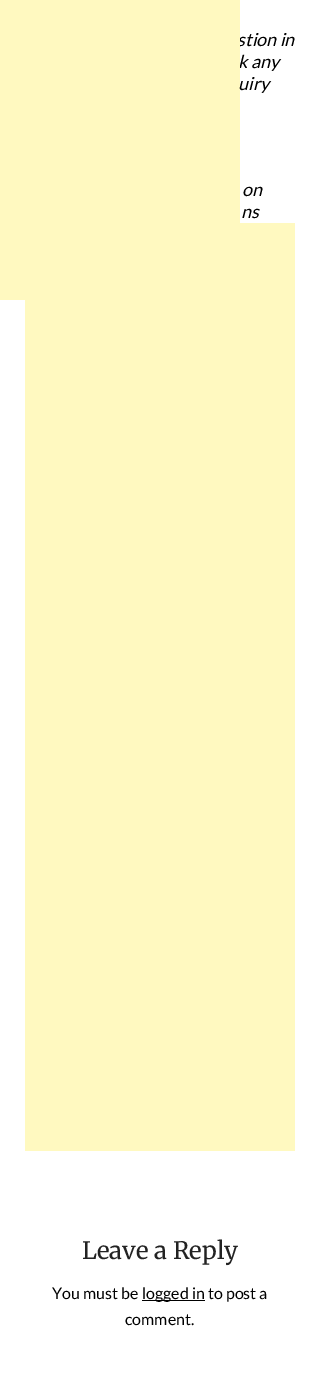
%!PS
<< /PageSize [320 1398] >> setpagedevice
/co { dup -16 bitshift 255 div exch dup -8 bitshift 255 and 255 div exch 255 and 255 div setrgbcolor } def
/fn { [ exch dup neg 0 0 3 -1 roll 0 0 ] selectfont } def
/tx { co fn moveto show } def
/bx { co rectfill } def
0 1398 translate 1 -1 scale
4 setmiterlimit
0 0 320 1398 16#FFFFFF bx
25 223 270 928 16#FFF9C0 bx
142 1300 63 1 16#000000 bx
(stion in) 237 46 /Lato-Italic 18 16#000000 tx
(k any) 238 68 /Lato-Italic 18 16#000000 tx
0 0 240 300 16#FFF9C0 bx
(uiry) 238 90 /Lato-Italic 18 16#000000 tx
(on) 242 196 /Lato-Italic 18 16#000000 tx
(ns) 241 218 /Lato-Italic 18 16#000000 tx
(Leave a Reply) 82 1259 /Merriweather-Regular 24 16#222222 tx
(You must be) 52 1299 /Lato-Regular 16 16#000000 tx
(logged in to post a) 142 1299 /Lato-Regular 16 16#000000 tx
(comment.) 125 1325 /Lato-Regular 16 16#000000 tx
showpage
